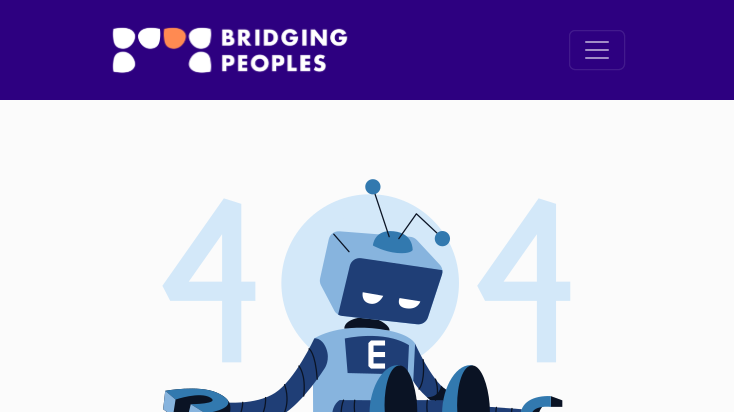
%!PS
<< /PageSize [734 412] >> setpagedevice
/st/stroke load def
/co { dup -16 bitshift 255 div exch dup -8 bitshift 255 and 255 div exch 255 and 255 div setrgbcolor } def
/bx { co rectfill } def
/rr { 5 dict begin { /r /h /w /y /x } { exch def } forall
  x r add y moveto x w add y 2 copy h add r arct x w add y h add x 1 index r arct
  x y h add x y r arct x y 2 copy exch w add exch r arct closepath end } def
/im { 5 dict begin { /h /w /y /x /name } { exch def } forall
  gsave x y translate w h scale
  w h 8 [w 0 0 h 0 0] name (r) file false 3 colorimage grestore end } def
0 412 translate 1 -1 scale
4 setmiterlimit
0 0 734 412 16#FBFBFB bx
0 0 734 100 16#2D0080 bx
(media/1.raw) 112 27 236 47 im
16#421A8D co
569.5 30.5 55 39 5.5 rr st
(media/2.raw) 585 41 24 18 im
(media/3.raw) 162 179 409 233 im
showpage
